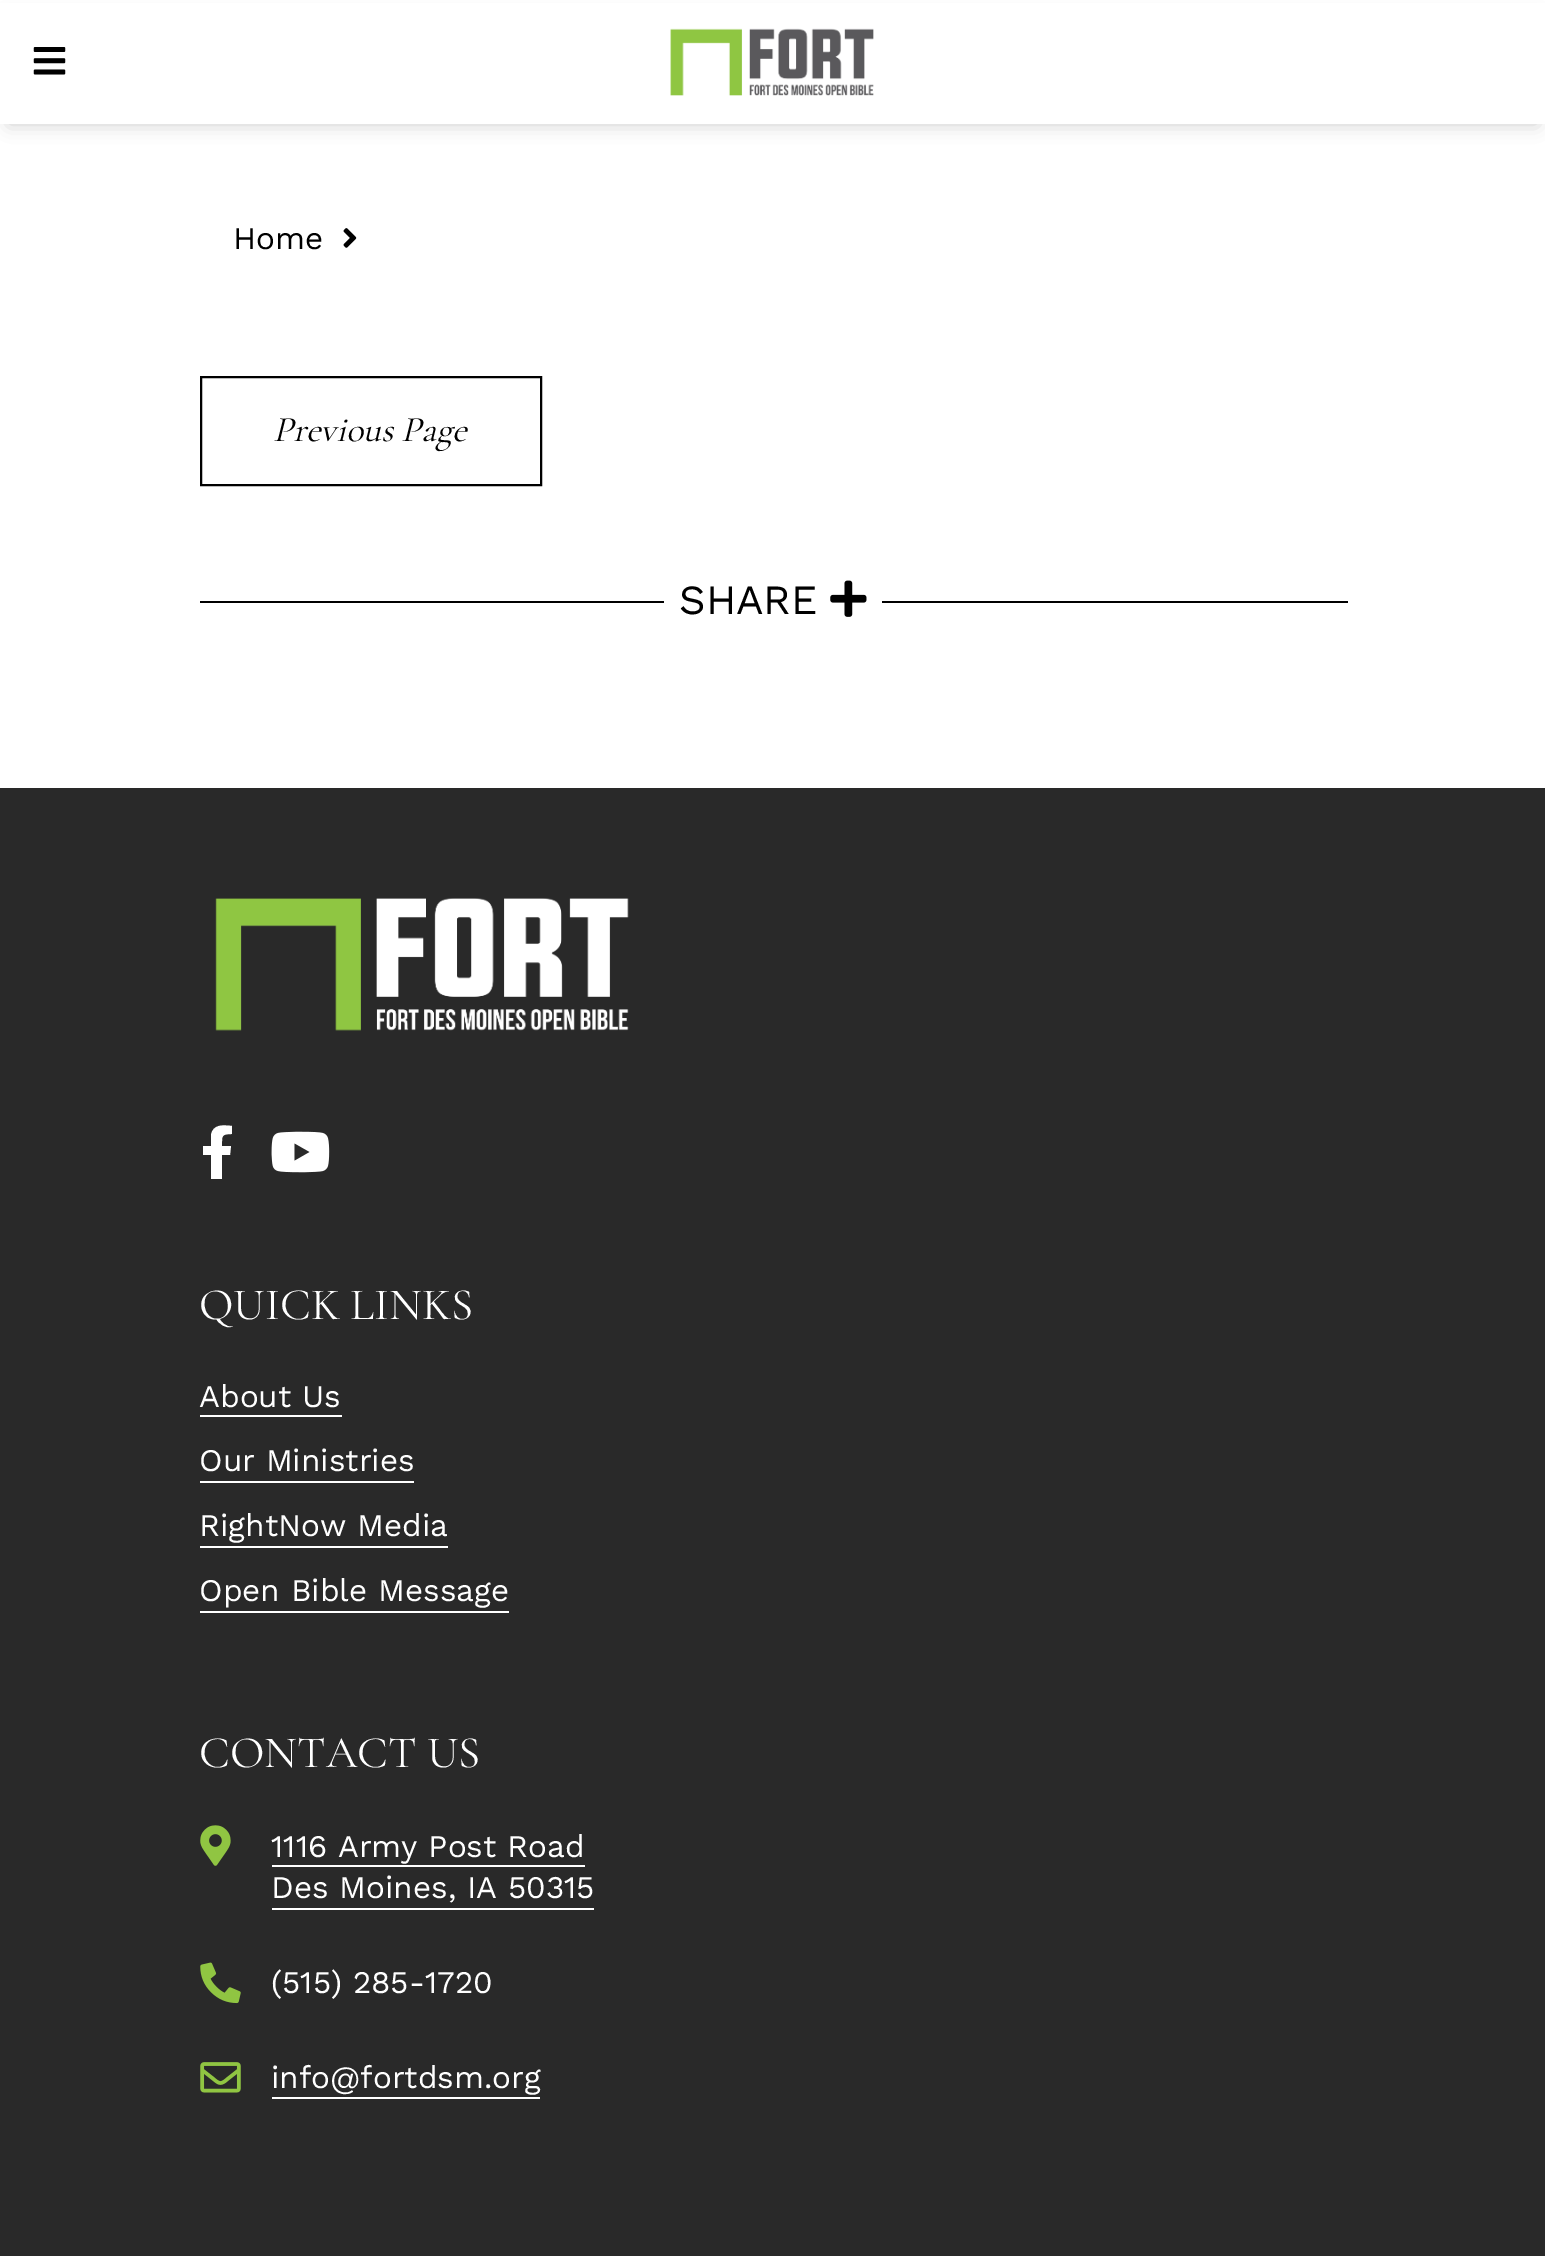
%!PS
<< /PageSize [1545 2256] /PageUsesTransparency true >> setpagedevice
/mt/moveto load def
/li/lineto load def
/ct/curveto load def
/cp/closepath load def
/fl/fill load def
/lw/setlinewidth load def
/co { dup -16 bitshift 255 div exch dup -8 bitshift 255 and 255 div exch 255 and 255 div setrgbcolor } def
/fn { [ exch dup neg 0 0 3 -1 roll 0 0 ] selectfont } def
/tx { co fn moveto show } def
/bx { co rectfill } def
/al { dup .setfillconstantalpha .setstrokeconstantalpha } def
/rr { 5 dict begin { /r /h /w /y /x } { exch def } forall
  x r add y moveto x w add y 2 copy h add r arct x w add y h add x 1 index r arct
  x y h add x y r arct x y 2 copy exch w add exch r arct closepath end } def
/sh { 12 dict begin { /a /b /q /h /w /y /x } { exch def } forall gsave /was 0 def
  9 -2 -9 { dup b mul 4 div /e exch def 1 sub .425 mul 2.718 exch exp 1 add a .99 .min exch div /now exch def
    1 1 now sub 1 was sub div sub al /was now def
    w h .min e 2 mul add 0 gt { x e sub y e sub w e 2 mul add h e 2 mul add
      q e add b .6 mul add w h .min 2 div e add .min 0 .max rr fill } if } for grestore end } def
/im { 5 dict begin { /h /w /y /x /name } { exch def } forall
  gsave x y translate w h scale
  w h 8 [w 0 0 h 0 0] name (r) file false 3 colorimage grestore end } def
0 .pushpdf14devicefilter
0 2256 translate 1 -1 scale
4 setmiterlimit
0 0 1545 2256 16#FFFFFF bx
16#000000 co
9 18 1528 106 0 9 .2 sh
0 3 1545 121 16#FFFFFF bx
(media/1.raw) 33 47 33 28 im
(media/2.raw) 670 28 204 68 im
(media/3.raw) 343 228 14 20 im
16#000000 co
2 lw
201 377 340 108 rectstroke
200 601 464 2 16#000000 bx
(media/4.raw) 830 580 37 37 im
882 601 466 2 16#000000 bx
0 788 1545 1468 16#292929 bx
(media/5.raw) 215 898 414 133 im
16#FFFFFF co
230 1155 mt 222 1155 li 222 1179 li 211 1179 li 211 1155 li 203 1155 li 203 1146 li 211 1146 li 211 1135 li 213 1124 223 1125 232 1126 ct 232 1134 li 221 1134 222 1136 222 1146 ct 231 1146 li cp fl
(media/6.raw) 271 1131 59 42 im
200 1415 142 2 16#FFFFFF bx
200 1481 214 2 16#FFFFFF bx
200 1546 248 2 16#FFFFFF bx
200 1611 309 2 16#FFFFFF bx
(media/7.raw) 200 1825 31 41 im
272 1865 313 2 16#FFFFFF bx
272 1908 322 2 16#FFFFFF bx
(media/8.raw) 200 1962 41 42 im
(media/9.raw) 200 2062 41 31 im
272 2097 268 2 16#FFFFFF bx
(Home) 233 249 /WorkSans-Regular 31.5 16#000000 tx
(Previous Page) 273 441 /CormorantGaramond-LightItalic 36 16#000000 tx
(SHARE) 679 614 /WorkSans-Regular 41.5 16#000000 tx
(QUICK LINKS) 199 1319 /CormorantGaramond-Light 45 16#FFFFFF tx
(About Us) 199 1407 /WorkSans-Regular 31.5 16#FFFFFF tx
(Our Ministries) 199 1471 /WorkSans-Regular 31.5 16#FFFFFF tx
(RightNow Media) 199 1536 /WorkSans-Regular 31.5 16#FFFFFF tx
(Open Bible Message) 199 1601 /WorkSans-Regular 31.5 16#FFFFFF tx
(CONTACT US) 199 1767 /CormorantGaramond-Light 45 16#FFFFFF tx
(1116 Army Post Road) 271 1857 /WorkSans-Regular 31.5 16#FFFFFF tx
(Des Moines, IA 50315) 271 1898 /WorkSans-Regular 31.5 16#FFFFFF tx
(\(515\) 285-1720) 271 1993 /WorkSans-Regular 31.5 16#FFFFFF tx
(info@fortdsm.org) 271 2088 /WorkSans-Regular 31.5 16#FFFFFF tx
.poppdf14devicefilter showpage
